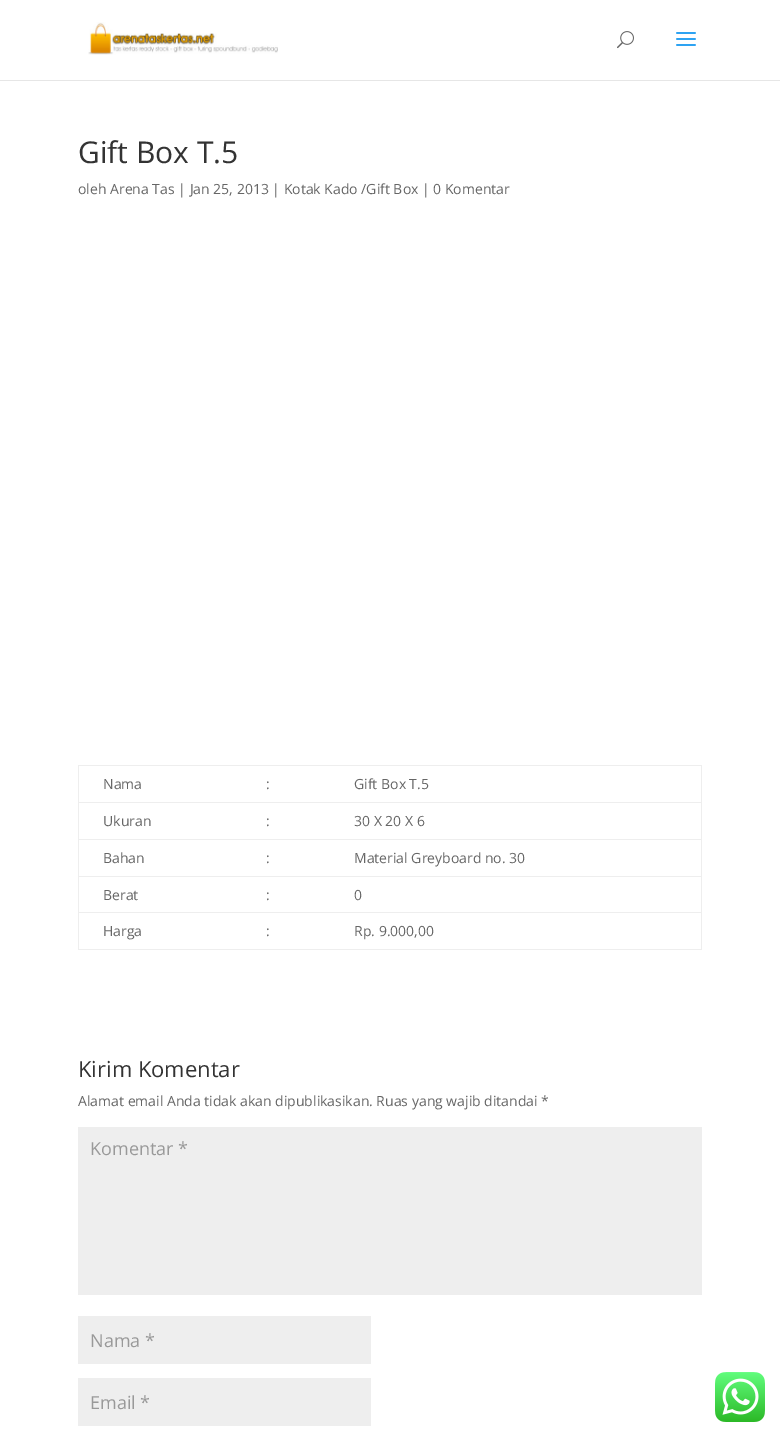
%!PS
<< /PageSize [780 1437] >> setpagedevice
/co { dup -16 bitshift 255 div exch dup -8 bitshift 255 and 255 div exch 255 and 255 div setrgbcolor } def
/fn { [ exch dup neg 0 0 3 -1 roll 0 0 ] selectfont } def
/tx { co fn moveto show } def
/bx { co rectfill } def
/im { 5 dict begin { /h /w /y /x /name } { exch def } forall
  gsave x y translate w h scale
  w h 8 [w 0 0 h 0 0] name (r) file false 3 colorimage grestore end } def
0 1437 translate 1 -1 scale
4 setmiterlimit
0 0 780 1437 16#FFFFFF bx
0 80 780 1 16#E6E6E6 bx
(media/1.raw) 88 22 190 33 im
(media/2.raw) 617 31 17 18 im
(media/3.raw) 676 32 20 14 im
78 765 624 1 16#EEEEEE bx
701 765 1 185 16#EEEEEE bx
78 949 624 1 16#EEEEEE bx
78 765 1 185 16#EEEEEE bx
78 802 624 1 16#EEEEEE bx
78 839 624 1 16#EEEEEE bx
78 876 624 1 16#EEEEEE bx
78 912 624 1 16#EEEEEE bx
78 1127 624 168 16#EEEEEE bx
78 1316 293 48 16#EEEEEE bx
78 1378 293 48 16#EEEEEE bx
(media/4.raw) 715 1372 50 50 im
(Gift Box T.5) 78 163 /OpenSans-Regular 30 16#333333 tx
(oleh Arena Tas | Jan 25, 2013 | Kotak Kado /Gift Box | 0 Komentar) 78 194 /OpenSans-Regular 14 16#666666 tx
(Nama) 103 789 /OpenSans-Regular 14 16#666666 tx
(:) 266 789 /OpenSans-Regular 14 16#666666 tx
(Gift Box T.5) 354 789 /OpenSans-Regular 14 16#666666 tx
(Ukuran) 103 826 /OpenSans-Regular 14 16#666666 tx
(:) 266 826 /OpenSans-Regular 14 16#666666 tx
(30 X 20 X 6) 354 826 /OpenSans-Regular 14 16#666666 tx
(Bahan) 103 863 /OpenSans-Regular 14 16#666666 tx
(:) 266 863 /OpenSans-Regular 14 16#666666 tx
(Material Greyboard no. 30) 354 863 /OpenSans-Regular 14 16#666666 tx
(Berat) 103 900 /OpenSans-Regular 14 16#666666 tx
(:) 266 900 /OpenSans-Regular 14 16#666666 tx
(0) 354 900 /OpenSans-Regular 14 16#666666 tx
(Harga) 103 936 /OpenSans-Regular 14 16#666666 tx
(:) 266 936 /OpenSans-Regular 14 16#666666 tx
(Rp. 9.000,00) 354 936 /OpenSans-Regular 14 16#666666 tx
(Kirim Komentar) 78 1077 /OpenSans-Regular 22 16#333333 tx
(Alamat email Anda tidak akan dipublikasikan. Ruas yang wajib ditandai *) 78 1106 /OpenSans-Regular 14 16#666666 tx
(Komentar *) 90 1155 /OpenSans-Regular 18 16#999999 tx
(Nama *) 90 1347 /OpenSans-Regular 18 16#999999 tx
(Email *) 90 1409 /OpenSans-Regular 18 16#999999 tx
showpage
